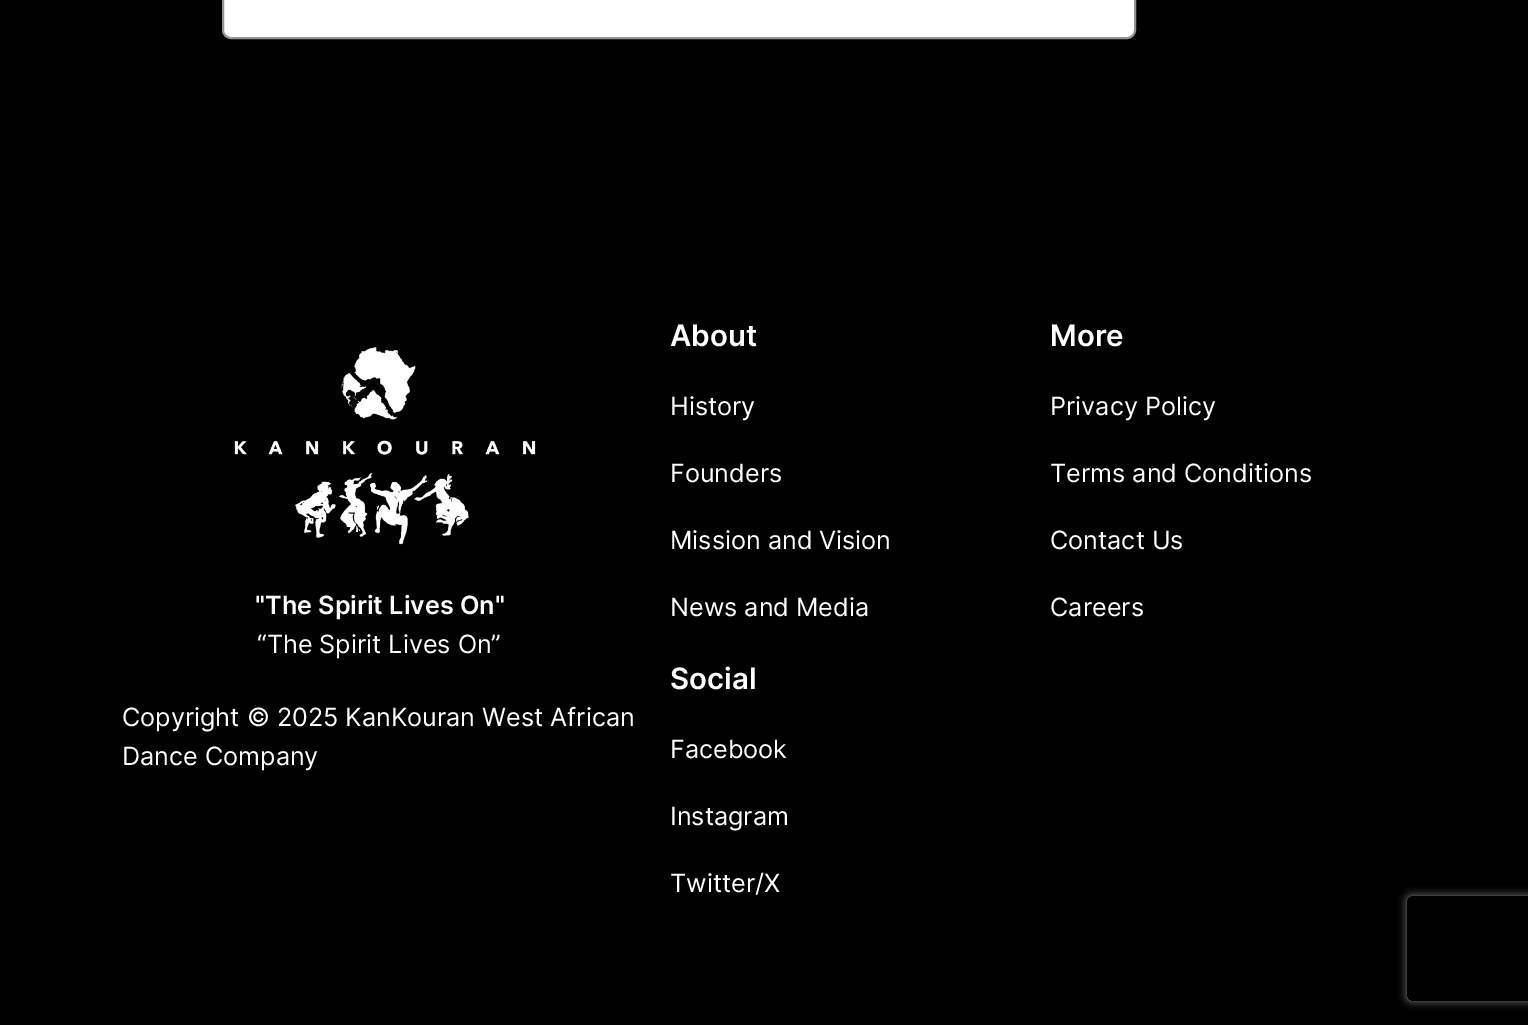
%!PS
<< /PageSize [1528 1025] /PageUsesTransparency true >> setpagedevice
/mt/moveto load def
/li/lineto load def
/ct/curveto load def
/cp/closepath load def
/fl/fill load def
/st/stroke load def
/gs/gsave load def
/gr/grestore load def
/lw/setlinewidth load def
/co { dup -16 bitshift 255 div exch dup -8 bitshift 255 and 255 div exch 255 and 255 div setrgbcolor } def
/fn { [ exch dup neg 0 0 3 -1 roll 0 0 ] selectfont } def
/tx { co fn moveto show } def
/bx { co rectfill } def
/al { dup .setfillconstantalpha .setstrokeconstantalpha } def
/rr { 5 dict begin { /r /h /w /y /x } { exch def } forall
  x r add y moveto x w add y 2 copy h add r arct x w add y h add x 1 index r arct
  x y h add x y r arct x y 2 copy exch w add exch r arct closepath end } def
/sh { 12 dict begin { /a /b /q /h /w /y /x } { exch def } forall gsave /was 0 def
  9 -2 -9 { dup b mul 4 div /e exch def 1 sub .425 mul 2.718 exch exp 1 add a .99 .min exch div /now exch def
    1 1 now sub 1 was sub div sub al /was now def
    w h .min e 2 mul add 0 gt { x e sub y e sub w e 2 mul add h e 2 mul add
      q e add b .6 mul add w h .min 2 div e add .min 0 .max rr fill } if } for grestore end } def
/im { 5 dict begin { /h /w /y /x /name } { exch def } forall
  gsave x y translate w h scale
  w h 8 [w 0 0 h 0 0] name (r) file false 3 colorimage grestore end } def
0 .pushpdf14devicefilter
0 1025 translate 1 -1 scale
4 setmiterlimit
0 0 1528 1025 16#000000 bx
16#FFFFFF co
223 -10 912 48 8 rr gs fl gr
16#949494 co
2 lw
st
(media/1.raw) 234 347 302 198 im
gs
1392 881 mt 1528 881 li 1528 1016 li 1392 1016 li cp 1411 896 mt 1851 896 li 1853 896 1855 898 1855 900 ct 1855 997 li 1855 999 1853 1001 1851 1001 ct 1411 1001 li 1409 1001 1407 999 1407 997 ct 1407 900 li 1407 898 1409 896 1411 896 ct cp eoclip newpath
16#808080 co
1407 896 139 105 4 4.5 1 sh
gr
("The Spirit Lives On") 255 614 /Inter-SemiBold 25.2 16#FFFFFF tx
(“The Spirit Lives On”) 257 653 /Inter-Regular 25.2 16#FFFFFF tx
(Copyright © 2025 KanKouran West African) 122 726 /Inter-Regular 25.2 16#FFFFFF tx
(Dance Company) 122 765 /Inter-Regular 25.2 16#FFFFFF tx
(About) 670 346 /Inter-SemiBold 29.5 16#FFFFFF tx
(History) 670 415 /Inter-Regular 25.2 16#FFFFFF tx
(Founders) 670 482 /Inter-Regular 25.2 16#FFFFFF tx
(Mission and Vision) 670 549 /Inter-Regular 25.2 16#FFFFFF tx
(News and Media) 670 616 /Inter-Regular 25.2 16#FFFFFF tx
(More) 1050 346 /Inter-SemiBold 29.5 16#FFFFFF tx
(Privacy Policy) 1050 415 /Inter-Regular 25.2 16#FFFFFF tx
(Terms and Conditions) 1050 482 /Inter-Regular 25.2 16#FFFFFF tx
(Contact Us) 1050 549 /Inter-Regular 25.2 16#FFFFFF tx
(Careers) 1050 616 /Inter-Regular 25.2 16#FFFFFF tx
(Social) 670 689 /Inter-SemiBold 29.5 16#FFFFFF tx
(Facebook) 670 758 /Inter-Regular 25.2 16#FFFFFF tx
(Instagram) 670 825 /Inter-Regular 25.2 16#FFFFFF tx
(Twitter/X) 670 892 /Inter-Regular 25.2 16#FFFFFF tx
.poppdf14devicefilter showpage
